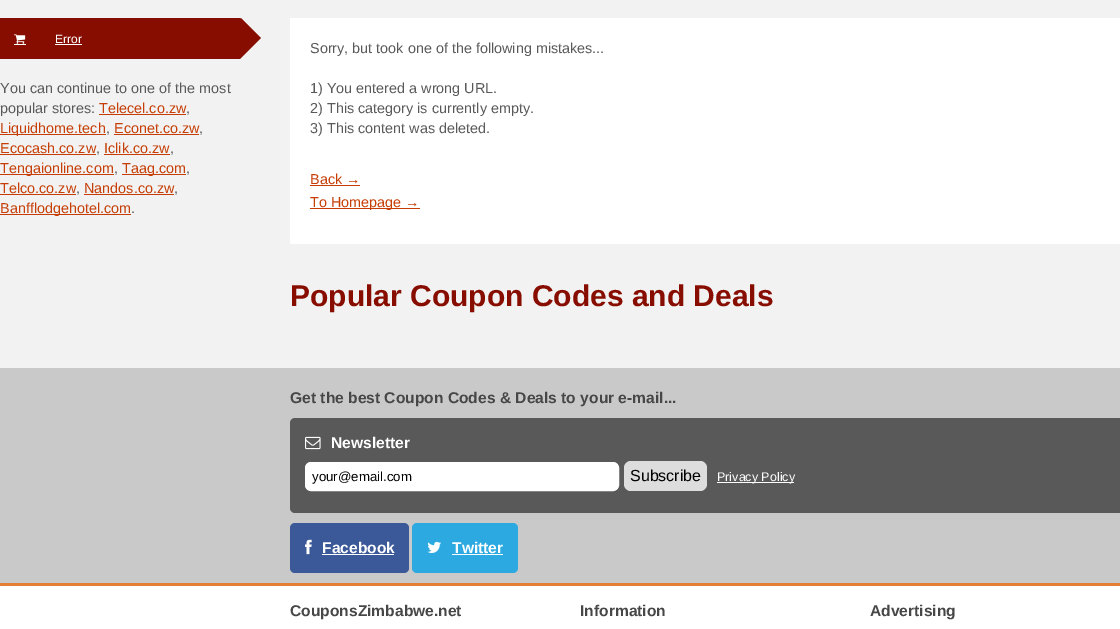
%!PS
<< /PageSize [1120 629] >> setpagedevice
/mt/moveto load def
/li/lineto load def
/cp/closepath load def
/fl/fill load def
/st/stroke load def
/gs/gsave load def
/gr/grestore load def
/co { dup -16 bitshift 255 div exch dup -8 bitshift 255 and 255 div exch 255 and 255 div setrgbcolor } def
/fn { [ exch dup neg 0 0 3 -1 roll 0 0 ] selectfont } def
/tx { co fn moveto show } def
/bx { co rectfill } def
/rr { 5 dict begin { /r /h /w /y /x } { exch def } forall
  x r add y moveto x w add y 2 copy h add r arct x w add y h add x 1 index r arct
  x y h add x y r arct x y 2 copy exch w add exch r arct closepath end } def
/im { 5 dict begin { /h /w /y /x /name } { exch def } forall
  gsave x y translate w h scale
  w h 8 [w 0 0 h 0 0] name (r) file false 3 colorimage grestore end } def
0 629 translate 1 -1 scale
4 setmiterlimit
0 0 1120 629 16#FFFFFF bx
0 0 1120 368 16#F2F2F2 bx
0 18 240 41 16#870D00 bx
(media/1.raw) 14 34 12 10 im
14 44 12 1 16#FFFFFF bx
55 44 27 1 16#FFFFFF bx
16#870D00 co
241 18 mt 261 38 li 240 59 li 220 38 li cp fl
99 114 87 1 16#C63E05 bx
0 134 106 1 16#C63E05 bx
114 134 85 1 16#C63E05 bx
0 154 96 1 16#C63E05 bx
104 154 66 1 16#C63E05 bx
0 174 114 1 16#C63E05 bx
122 174 64 1 16#C63E05 bx
0 194 76 1 16#C63E05 bx
84 194 90 1 16#C63E05 bx
0 214 131 1 16#C63E05 bx
290 18 830 226 16#FFFFFF bx
310 185 50 1 16#C63E05 bx
310 208 110 1 16#C63E05 bx
0 368 1120 215 16#C9C9C9 bx
16#595959 co
290 418 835 95 5 rr fl
(media/2.raw) 305 436 16 14 im
16#FFFFFF co
305.5 462.5 313 28 5.5 rr gs fl gr
st
16#DDDDDD co
624 461 83 30 7 rr fl
717 482 77 1 16#FFFFFF bx
16#3B5998 co
290 523 119 50 5 rr fl
(media/3.raw) 305 539 7 16 im
322 554 72 1 16#FFFFFF bx
16#2CA9E1 co
412 523 106 50 5 rr fl
(media/4.raw) 427 541 14 12 im
452 554 51 1 16#FFFFFF bx
0 583 1120 3 16#E47E34 bx
(Error) 55 43 /LiberationSans-Regular 12 16#FFFFFF tx
(You can continue to one of the most) 0 93 /LiberationSans-Regular 14.4 16#595959 tx
(popular stores:) 0 113 /LiberationSans-Regular 14.4 16#595959 tx
(Telecel.co.zw) 99 113 /LiberationSans-Regular 14.4 16#C63E05 tx
(,) 186 113 /LiberationSans-Regular 14.4 16#595959 tx
(Liquidhome.tech) 0 133 /LiberationSans-Regular 14.4 16#C63E05 tx
(,) 106 133 /LiberationSans-Regular 14.4 16#595959 tx
(Econet.co.zw) 114 133 /LiberationSans-Regular 14.4 16#C63E05 tx
(,) 199 133 /LiberationSans-Regular 14.4 16#595959 tx
(Ecocash.co.zw) 0 153 /LiberationSans-Regular 14.4 16#C63E05 tx
(,) 96 153 /LiberationSans-Regular 14.4 16#595959 tx
(Iclik.co.zw) 104 153 /LiberationSans-Regular 14.4 16#C63E05 tx
(,) 170 153 /LiberationSans-Regular 14.4 16#595959 tx
(Tengaionline.com) 0 173 /LiberationSans-Regular 14.4 16#C63E05 tx
(,) 114 173 /LiberationSans-Regular 14.4 16#595959 tx
(Taag.com) 122 173 /LiberationSans-Regular 14.4 16#C63E05 tx
(,) 186 173 /LiberationSans-Regular 14.4 16#595959 tx
(Telco.co.zw) 0 193 /LiberationSans-Regular 14.4 16#C63E05 tx
(,) 76 193 /LiberationSans-Regular 14.4 16#595959 tx
(Nandos.co.zw) 84 193 /LiberationSans-Regular 14.4 16#C63E05 tx
(,) 174 193 /LiberationSans-Regular 14.4 16#595959 tx
(Banfflodgehotel.com) 0 213 /LiberationSans-Regular 14.4 16#C63E05 tx
(.) 131 213 /LiberationSans-Regular 14.4 16#595959 tx
(Sorry, but took one of the following mistakes...) 310 53 /LiberationSans-Regular 14.4 16#595959 tx
(1\) You entered a wrong URL.) 310 93 /LiberationSans-Regular 14.4 16#595959 tx
(2\) This category is currently empty.) 310 113 /LiberationSans-Regular 14.4 16#595959 tx
(3\) This content was deleted.) 310 133 /LiberationSans-Regular 14.4 16#595959 tx
(Back →) 310 184 /LiberationSans-Regular 14.4 16#C63E05 tx
(To Homepage →) 310 207 /LiberationSans-Regular 14.4 16#C63E05 tx
(Popular Coupon Codes and Deals) 290 306 /LiberationSans-Bold 30 16#870D00 tx
(Get the best Coupon Codes & Deals to your e-mail...) 290 403 /LiberationSans-Bold 15.6 16#474747 tx
(Newsletter) 331 448 /LiberationSans-Bold 15.6 16#FFFFFF tx
(your@email.com) 312 481 /LiberationSans-Regular 13.25 16#000000 tx
(Subscribe) 630 481 /LiberationSans-Regular 16 16#000000 tx
(Privacy Policy) 717 481 /LiberationSans-Regular 12.5 16#FFFFFF tx
(Facebook) 322 553 /LiberationSans-Bold 15.6 16#FFFFFF tx
(Twitter) 452 553 /LiberationSans-Bold 15.6 16#FFFFFF tx
(CouponsZimbabwe.net) 290 616 /LiberationSans-Bold 15.6 16#474747 tx
(Information) 580 616 /LiberationSans-Bold 15.6 16#474747 tx
(Advertising) 870 616 /LiberationSans-Bold 15.6 16#474747 tx
showpage
